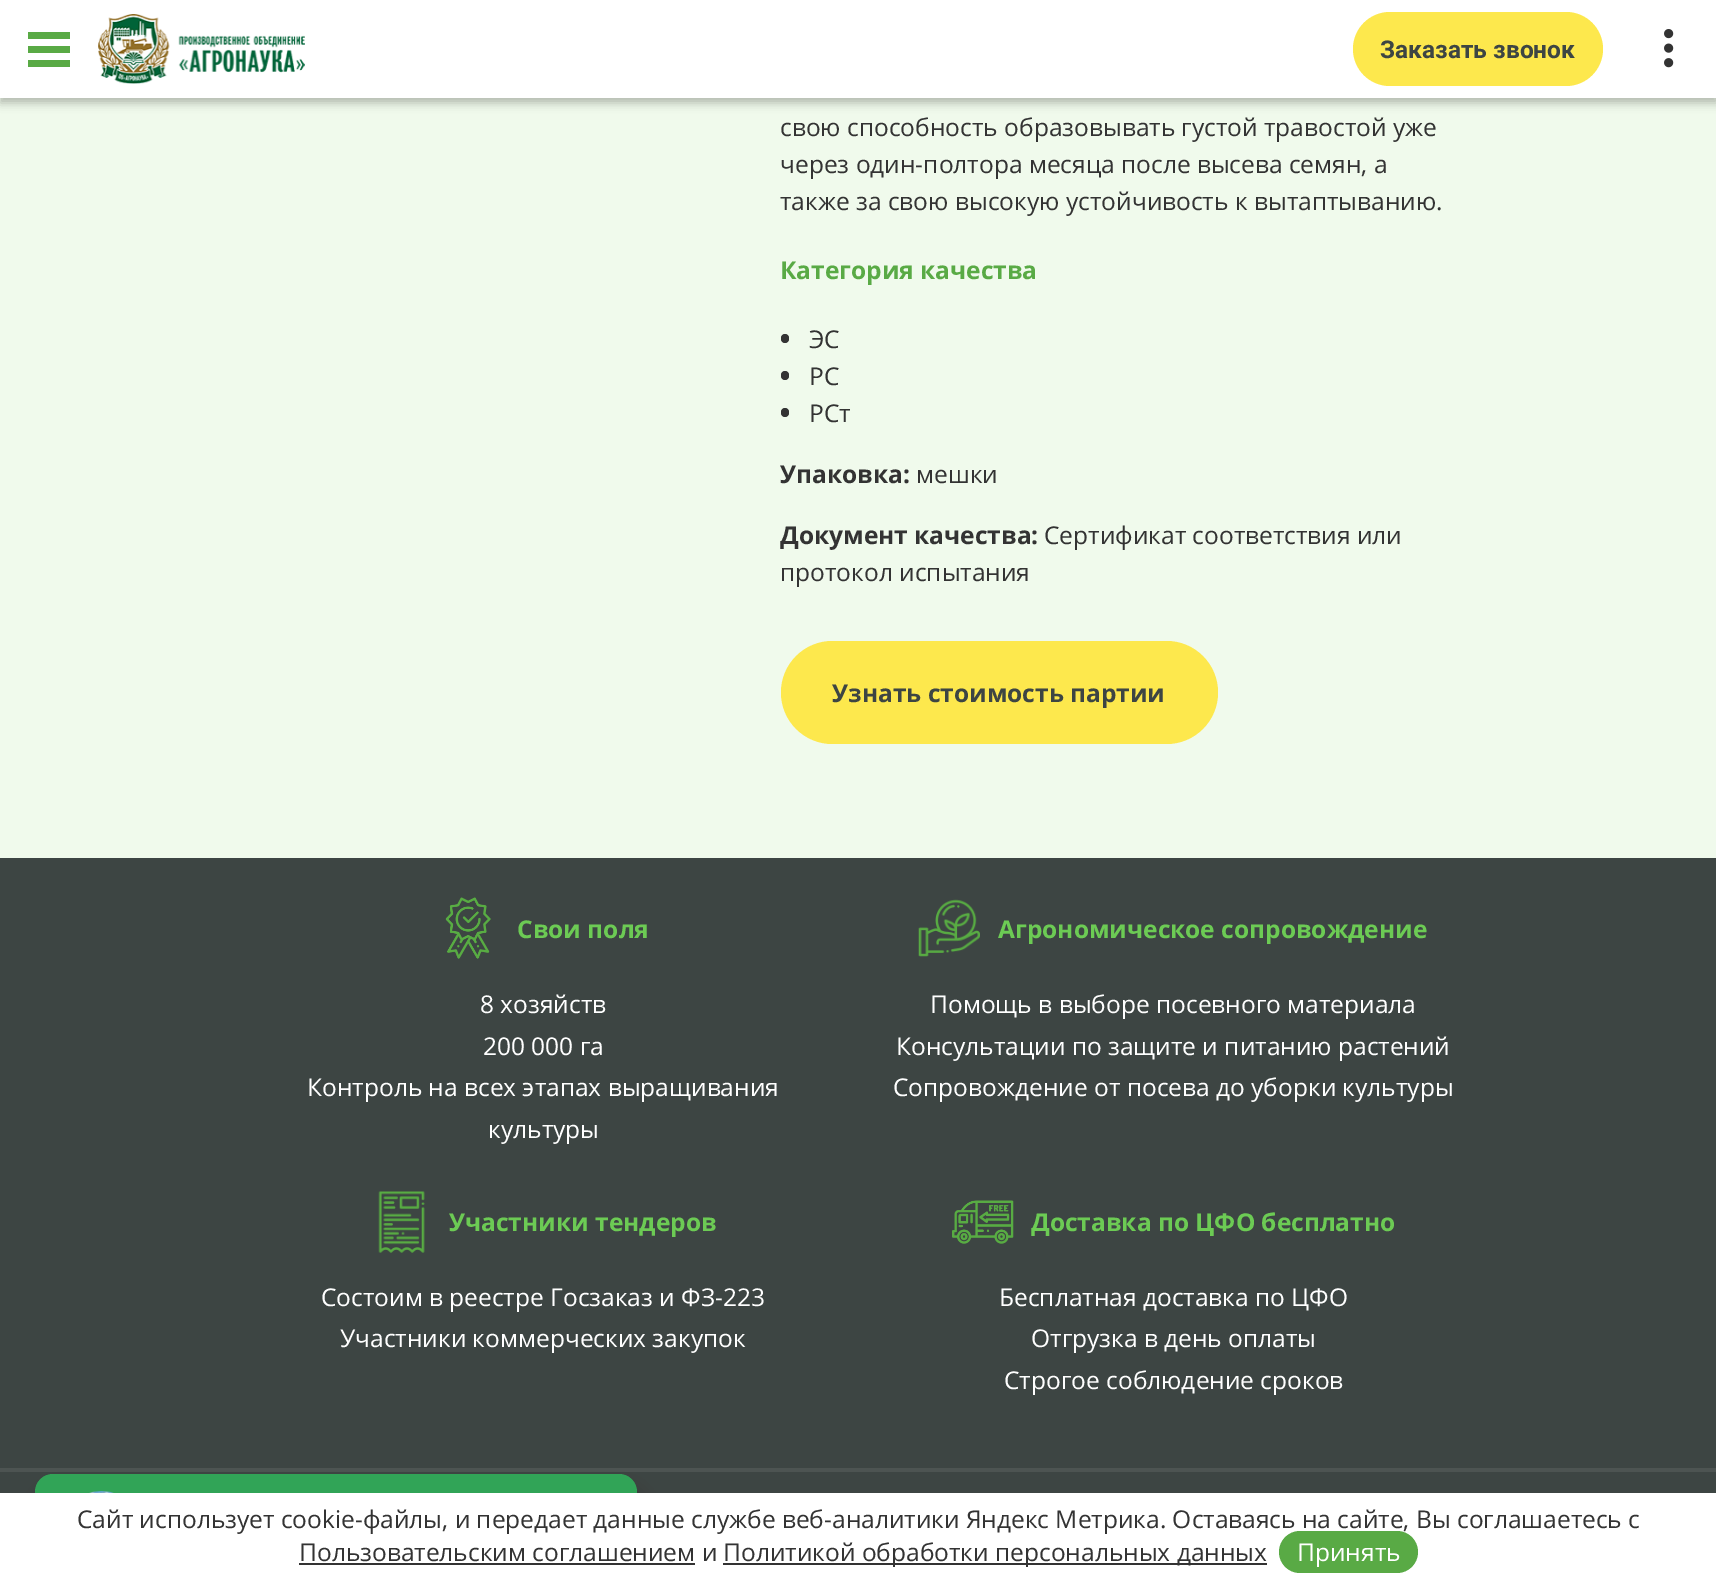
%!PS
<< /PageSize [1716 1587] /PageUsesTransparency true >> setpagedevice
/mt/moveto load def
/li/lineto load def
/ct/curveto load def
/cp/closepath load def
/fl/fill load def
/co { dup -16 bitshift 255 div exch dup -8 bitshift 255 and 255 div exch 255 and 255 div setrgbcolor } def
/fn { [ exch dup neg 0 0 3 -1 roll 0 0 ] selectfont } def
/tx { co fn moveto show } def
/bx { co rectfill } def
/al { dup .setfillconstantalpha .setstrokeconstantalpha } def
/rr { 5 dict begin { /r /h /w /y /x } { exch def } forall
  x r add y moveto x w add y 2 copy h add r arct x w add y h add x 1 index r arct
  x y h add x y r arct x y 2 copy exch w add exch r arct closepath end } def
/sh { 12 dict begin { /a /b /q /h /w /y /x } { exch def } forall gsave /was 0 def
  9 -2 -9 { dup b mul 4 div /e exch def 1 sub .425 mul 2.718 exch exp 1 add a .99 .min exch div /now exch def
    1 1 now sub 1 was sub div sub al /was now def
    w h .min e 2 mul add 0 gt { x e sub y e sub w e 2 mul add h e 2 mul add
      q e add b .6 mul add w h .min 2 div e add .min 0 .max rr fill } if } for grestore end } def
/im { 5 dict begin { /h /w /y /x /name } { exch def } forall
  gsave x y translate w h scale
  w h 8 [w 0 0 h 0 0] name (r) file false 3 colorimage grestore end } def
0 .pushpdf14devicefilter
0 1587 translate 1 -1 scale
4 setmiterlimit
0 0 1716 1587 16#F0FAEC bx
16#000000 co
0 5 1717 98 0 4.5 .25 sh
0 0 1716 98 16#FFFFFF bx
28 46 42 7 16#59AA45 bx
28 32 42 7 16#59AA45 bx
28 60 42 7 16#59AA45 bx
(media/1.raw) 98 14 207 70 im
16#FDE84D co
1353 12 250 74 37 rr fl
(media/2.raw) 1664 29 10 39 im
16#333333 co
781 334 8 9 4 rr fl
781 371 8 9 4 rr fl
781 408 8 9 4 rr fl
16#FDE84D co
781 641 437 103 51.5 rr fl
0 858 1716 635 16#3D4543 bx
(media/3.raw) 445 897 46 62 im
(media/4.raw) 918 899 62 58 im
(media/5.raw) 378 1191 47 62 im
(media/6.raw) 952 1200 62 44 im
0 1468 1716 4 16#4D5452 bx
16#000000 co
40 1491 602 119 18 9 .2 sh
16#31A457 co
53 1474 mt 619 1474 li 629 1474 637 1482 637 1492 ct 637 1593 li 35 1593 li 35 1492 li 35 1482 43 1474 53 1474 ct cp fl
(media/7.raw) 89 1491 25 2 im
0 1493 1716 94 16#FFFFFF bx
299 1563 396 2 16#333333 bx
723 1563 544 2 16#333333 bx
(Заказать звонок) 1380 58 /Roboto-Bold 24.5 16#3D4543 tx
(свою способность образовывать густой травостой уже) 780 136 /OpenSans-Regular 24.5 16#333333 tx
(через один-полтора месяца после высева семян, а) 780 173 /OpenSans-Regular 24.5 16#333333 tx
(также за свою высокую устойчивость к вытаптыванию.) 780 210 /OpenSans-Regular 24.5 16#333333 tx
(Категория качества) 780 279 /OpenSans-Bold 24.5 16#59AA45 tx
(ЭС) 809 348 /OpenSans-Regular 24.5 16#333333 tx
(РС) 809 385 /OpenSans-Regular 24.5 16#333333 tx
(РСт) 809 422 /OpenSans-Regular 24.5 16#333333 tx
(Упаковка:) 780 483 /OpenSans-Bold 24.5 16#333333 tx
(мешки) 916 483 /OpenSans-Regular 24.5 16#333333 tx
(Документ качества:) 780 544 /OpenSans-Bold 24.5 16#333333 tx
(Сертификат соответствия или) 1044 544 /OpenSans-Regular 24.5 16#333333 tx
(протокол испытания) 780 581 /OpenSans-Regular 24.5 16#333333 tx
(Узнать стоимость партии) 832 702 /OpenSans-Bold 24.5 16#3D4543 tx
(Свои поля) 517 938 /OpenSans-Bold 24.5 16#6CCB54 tx
(8 хозяйств) 480 1013 /OpenSans-Regular 24.5 16#FFFFFF tx
(200 000 га) 483 1055 /OpenSans-Regular 24.5 16#FFFFFF tx
(Контроль на всех этапах выращивания) 307 1096 /OpenSans-Regular 24.5 16#FFFFFF tx
(культуры) 488 1138 /OpenSans-Regular 24.5 16#FFFFFF tx
(Агрономическое сопровождение) 998 938 /OpenSans-Bold 24.5 16#6CCB54 tx
(Помощь в выборе посевного материала) 930 1013 /OpenSans-Regular 24.5 16#FFFFFF tx
(Консультации по защите и питанию растений) 896 1055 /OpenSans-Regular 24.5 16#FFFFFF tx
(Сопровождение от посева до уборки культуры) 893 1096 /OpenSans-Regular 24.5 16#FFFFFF tx
(Участники тендеров) 449 1231 /OpenSans-Bold 24.5 16#6CCB54 tx
(Состоим в реестре Госзаказ и ФЗ-223) 321 1306 /OpenSans-Regular 24.5 16#FFFFFF tx
(Участники коммерческих закупок) 340 1347 /OpenSans-Regular 24.5 16#FFFFFF tx
(Доставка по ЦФО бесплатно) 1031 1231 /OpenSans-Bold 24.5 16#6CCB54 tx
(Бесплатная доставка по ЦФО) 999 1306 /OpenSans-Regular 24.5 16#FFFFFF tx
(Отгрузка в день оплаты) 1031 1347 /OpenSans-Regular 24.5 16#FFFFFF tx
(Строгое соблюдение сроков) 1004 1389 /OpenSans-Regular 24.5 16#FFFFFF tx
(Сайт использует cookie-файлы, и передает данные службе веб-аналитики Яндекс Метрика. Оставаясь на сайте, Вы соглашаетесь с) 77 1528 /OpenSans-Regular 24.5 16#333333 tx
(Пользовательским соглашением и) 299 1561 /OpenSans-Regular 24.5 16#333333 tx
(Политикой обработки персональных данных) 723 1561 /OpenSans-Regular 24.5 16#333333 tx
16#59AA45 co
1279 1531 139 42 21 rr fl
(Принять) 1297 1561 /OpenSans-Regular 24.5 16#FFFFFF tx
.poppdf14devicefilter showpage
